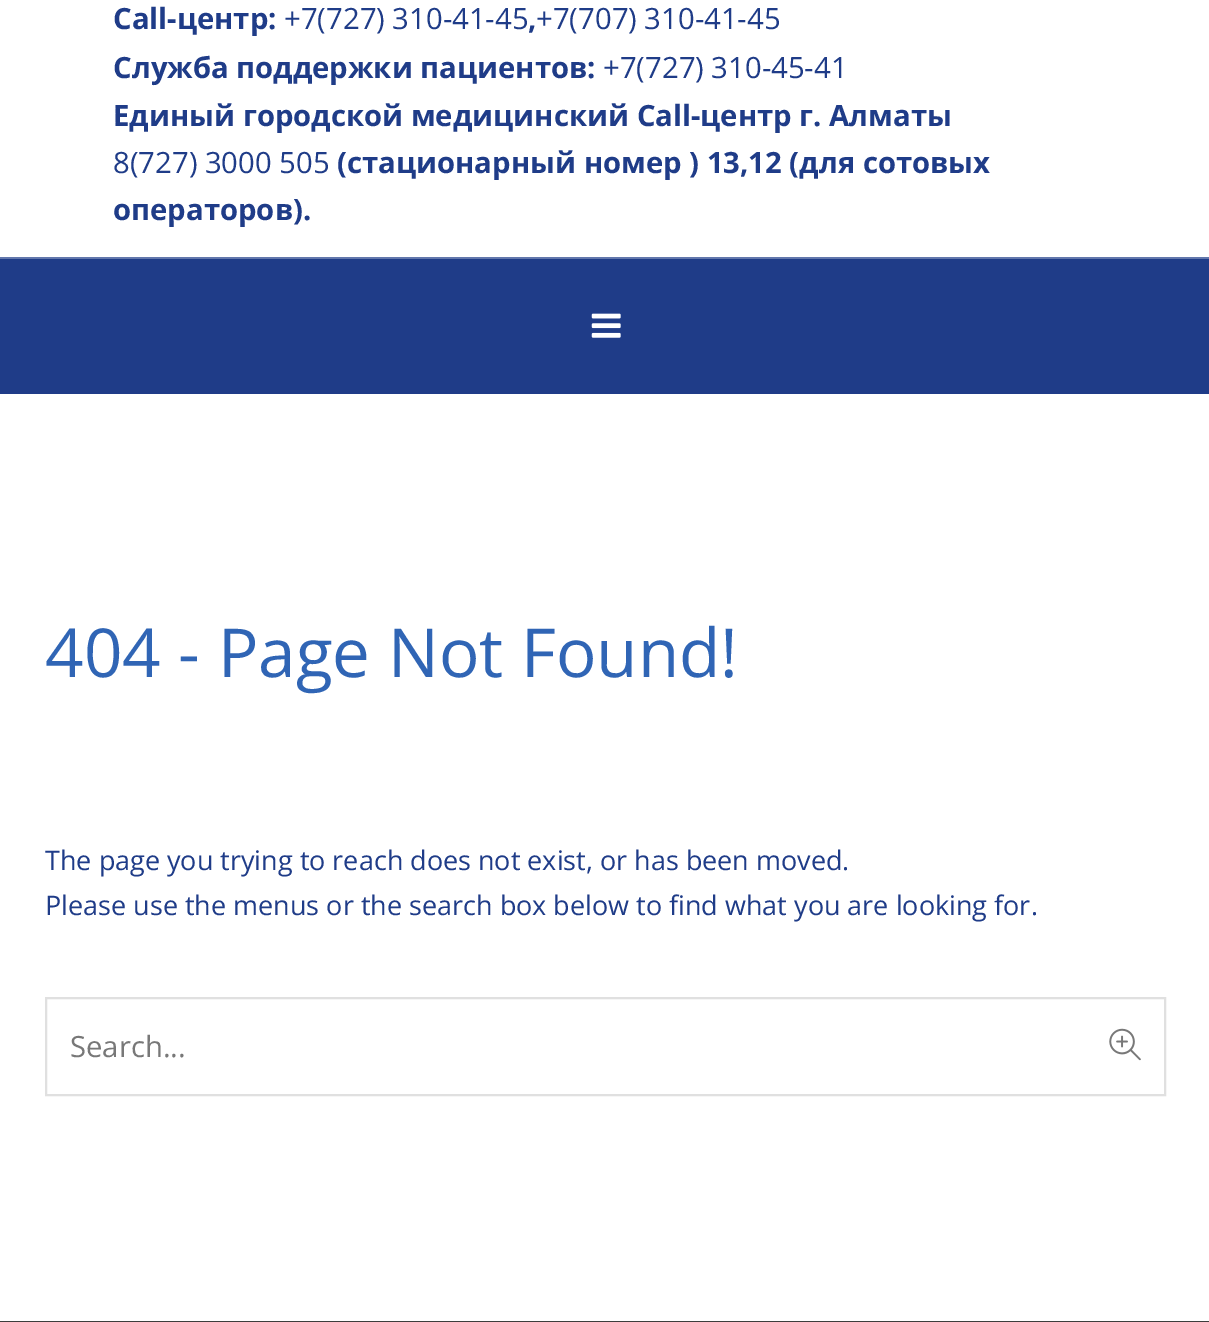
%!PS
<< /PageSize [1209 1322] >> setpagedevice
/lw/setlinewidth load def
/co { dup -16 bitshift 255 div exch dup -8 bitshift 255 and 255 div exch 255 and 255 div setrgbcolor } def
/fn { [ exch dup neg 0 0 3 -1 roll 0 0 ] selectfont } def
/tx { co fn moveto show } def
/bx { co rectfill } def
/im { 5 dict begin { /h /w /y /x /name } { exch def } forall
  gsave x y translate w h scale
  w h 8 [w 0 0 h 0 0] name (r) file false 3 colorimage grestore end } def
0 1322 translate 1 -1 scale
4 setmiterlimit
0 0 1209 1322 16#3D3D3D bx
0 0 1209 257 16#FFFFFF bx
0 259 1209 135 16#1F3C88 bx
0 257 1209 2 16#6277AC bx
(media/1.raw) 591 313 30 25 im
0 394 1209 927 16#FFFFFF bx
16#E0E0E0 co
2 lw
46 998 1119 97 rectstroke
(media/2.raw) 1109 1028 32 33 im
(Call-центр:) 113 29 /OpenSans-Bold 29.25 16#1F3C88 tx
(+7\(727\) 310-41-45) 284 29 /OpenSans-Regular 29.25 16#1F3C88 tx
(,) 528 29 /OpenSans-Bold 29.25 16#1F3C88 tx
(+7\(707\) 310-41-45) 536 29 /OpenSans-Regular 29.25 16#1F3C88 tx
(Служба поддержки пациентов:) 113 78 /OpenSans-Bold 29.25 16#1F3C88 tx
(+7\(727\) 310-45-41) 603 78 /OpenSans-Regular 29.25 16#1F3C88 tx
(Единый городской медицинский Call-центр г. Алматы) 113 126 /OpenSans-Bold 29.25 16#1F3C88 tx
(8\(727\) 3000 505) 113 173 /OpenSans-Regular 29.25 16#1F3C88 tx
(\(стационарный номер \) 13,12 \(для сотовых) 337 173 /OpenSans-Bold 29.25 16#1F3C88 tx
(операторов\).) 113 220 /OpenSans-Bold 29.25 16#1F3C88 tx
(404 - Page Not Found!) 45 677 /OpenSans-Regular 67.5 16#3065B5 tx
(The page you trying to reach does not exist, or has been moved.) 45 870 /OpenSans-Regular 27 16#1F3C88 tx
(Please use the menus or the search box below to find what you are looking for.) 45 915 /OpenSans-Regular 27 16#1F3C88 tx
(Search...) 70 1057 /OpenSans-Regular 29.25 16#787878 tx
showpage
